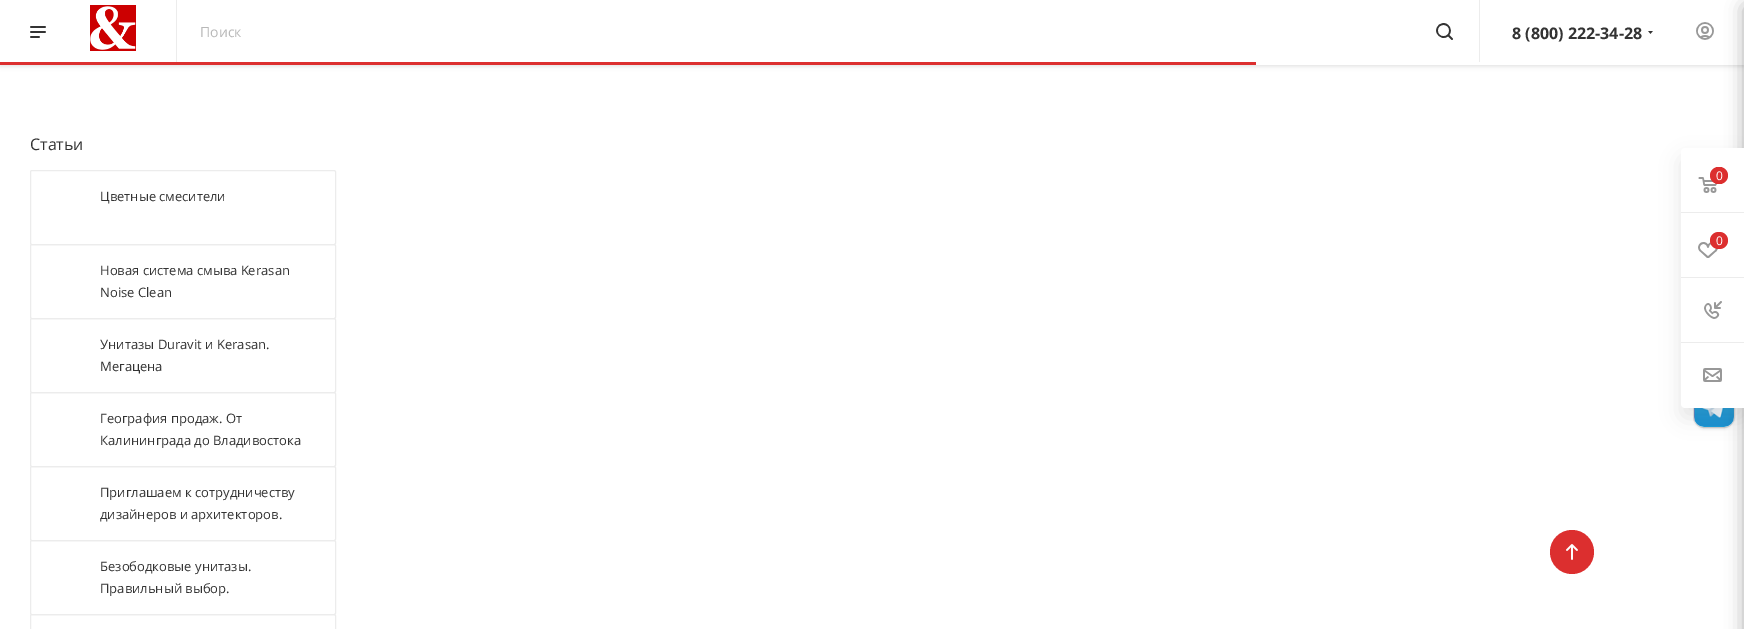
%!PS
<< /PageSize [1744 629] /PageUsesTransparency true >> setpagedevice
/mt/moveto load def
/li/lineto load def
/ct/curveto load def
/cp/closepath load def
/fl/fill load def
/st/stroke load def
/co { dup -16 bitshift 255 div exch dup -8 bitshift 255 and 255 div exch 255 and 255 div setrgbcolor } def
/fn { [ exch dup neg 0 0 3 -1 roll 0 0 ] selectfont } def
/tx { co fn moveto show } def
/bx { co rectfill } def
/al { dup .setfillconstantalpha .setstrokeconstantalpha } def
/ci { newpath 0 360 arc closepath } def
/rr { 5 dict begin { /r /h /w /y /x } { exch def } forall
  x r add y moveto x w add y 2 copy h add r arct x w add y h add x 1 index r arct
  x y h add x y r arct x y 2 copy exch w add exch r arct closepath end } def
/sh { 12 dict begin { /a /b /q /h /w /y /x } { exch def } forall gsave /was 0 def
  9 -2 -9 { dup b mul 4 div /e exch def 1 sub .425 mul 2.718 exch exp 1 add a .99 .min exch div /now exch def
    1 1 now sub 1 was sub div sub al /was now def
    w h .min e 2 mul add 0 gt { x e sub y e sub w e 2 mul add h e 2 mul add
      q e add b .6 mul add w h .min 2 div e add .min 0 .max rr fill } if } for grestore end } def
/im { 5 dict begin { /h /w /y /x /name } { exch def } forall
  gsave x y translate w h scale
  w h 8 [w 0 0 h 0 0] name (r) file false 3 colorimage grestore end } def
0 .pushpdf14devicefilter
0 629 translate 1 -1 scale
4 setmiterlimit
0 0 1744 629 16#FFFFFF bx
16#000000 co
0 1 1744 65 0 2.5 .14 sh
0 0 1744 65 16#FFFFFF bx
(media/1.raw) 30 26 16 12 im
(media/2.raw) 90 5 46 46 im
1479 0 1 62 16#ECECEC bx
176 0 1 62 16#ECECEC bx
(media/3.raw) 1436 23 17 17 im
(media/4.raw) 1648 31 5 3 im
(media/5.raw) 1696 22 18 18 im
0 62 1256 3 16#DC2F2F bx
16#ECECEC co
30.5 170.5 305 74 1.5 rr st
30.5 244.5 305 74 1.5 rr st
30.5 318.5 305 74 1.5 rr st
30.5 392.5 305 74 1.5 rr st
30.5 466.5 305 74 1.5 rr st
30.5 540.5 305 74 1.5 rr st
30.5 614.5 305 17 1.5 rr st
16#000000 co
1697 393 34 34 7 2 .3 sh
0.1 al
1693.5 386.5 41 41 10.5 rr st
1 al
(media/10.raw) 1694 408 40 19 im
16#2C2C2C co
1744 6 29 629 2 9 .4 sh
16#000000 co
1681 158 63 260 4 10 .1 sh
16#FFFFFF co
1685 148 mt 1744 148 li 1744 408 li 1685 408 li 1683 408 1681 406 1681 404 ct 1681 152 li 1681 150 1683 148 1685 148 ct cp fl
1681 212 63 1 16#ECECEC bx
(media/6.raw) 1698 177 19 16 im
16#DC2F2F co
1710 167 18 17 8.5 rr fl
1716 167 6 17 16#DC2F2F bx
1681 277 63 1 16#ECECEC bx
(media/7.raw) 1698 242 20 16 im
16#DC2F2F co
1710 232 18 17 8.5 rr fl
1681 342 63 1 16#ECECEC bx
(media/8.raw) 1704 301 18 18 im
(media/9.raw) 1703 368 19 14 im
16#DC2F2F co
1572 552 22 ci fl
(media/11.raw) 1566 544 12 16 im
(Поиск) 200 37 /OpenSans-Regular 14 16#B8B8B8 tx
(8 \(800\) 222-34-28) 1512 39 /OpenSans-Bold 16 16#333333 tx
(Статьи) 30 150 /OpenSans-Regular 16 16#333333 tx
(Цветные смесители) 100 201 /OpenSans-Regular 13 16#333333 tx
(Новая система смыва Kerasan) 100 275 /OpenSans-Regular 13 16#333333 tx
(Noise Clean) 100 297 /OpenSans-Regular 13 16#333333 tx
(Унитазы Duravit и Kerasan.) 100 349 /OpenSans-Regular 13 16#333333 tx
(Мегацена) 100 371 /OpenSans-Regular 13 16#333333 tx
(География продаж. От) 100 423 /OpenSans-Regular 13 16#333333 tx
(Калининграда до Владивостока) 100 445 /OpenSans-Regular 13 16#333333 tx
(Приглашаем к сотрудничеству) 100 497 /OpenSans-Regular 13 16#333333 tx
(дизайнеров и архитекторов.) 100 519 /OpenSans-Regular 13 16#333333 tx
(Безободковые унитазы.) 100 571 /OpenSans-Regular 13 16#333333 tx
(Правильный выбор.) 100 593 /OpenSans-Regular 13 16#333333 tx
(0) 1716 180 /OpenSans-Regular 12 16#FFFFFF tx
(0) 1716 245 /OpenSans-Regular 12 16#FFFFFF tx
.poppdf14devicefilter showpage
